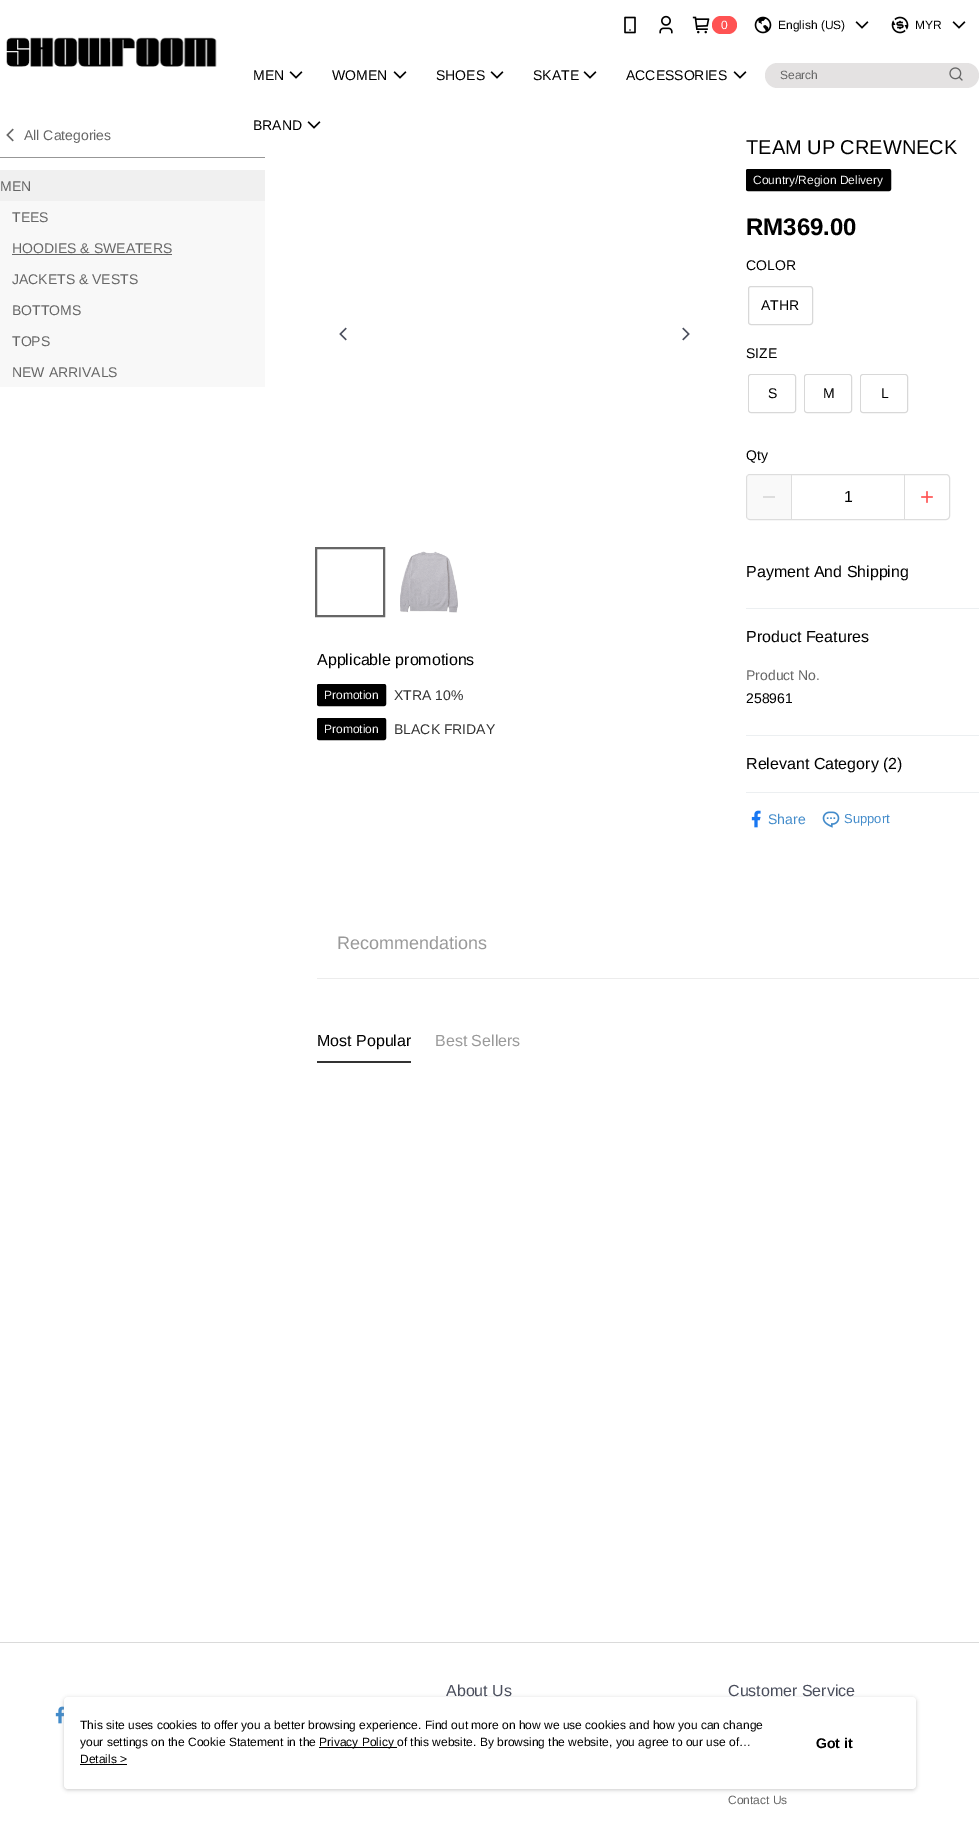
%!PS
<< /PageSize [979 1835] /PageUsesTransparency true >> setpagedevice
/fl/fill load def
/st/stroke load def
/gs/gsave load def
/gr/grestore load def
/lw/setlinewidth load def
/co { dup -16 bitshift 255 div exch dup -8 bitshift 255 and 255 div exch 255 and 255 div setrgbcolor } def
/fn { [ exch dup neg 0 0 3 -1 roll 0 0 ] selectfont } def
/tx { co fn moveto show } def
/bx { co rectfill } def
/al { dup .setfillconstantalpha .setstrokeconstantalpha } def
/rr { 5 dict begin { /r /h /w /y /x } { exch def } forall
  x r add y moveto x w add y 2 copy h add r arct x w add y h add x 1 index r arct
  x y h add x y r arct x y 2 copy exch w add exch r arct closepath end } def
/sh { 12 dict begin { /a /b /q /h /w /y /x } { exch def } forall gsave /was 0 def
  9 -2 -9 { dup b mul 4 div /e exch def 1 sub .425 mul 2.718 exch exp 1 add a .99 .min exch div /now exch def
    1 1 now sub 1 was sub div sub al /was now def
    w h .min e 2 mul add 0 gt { x e sub y e sub w e 2 mul add h e 2 mul add
      q e add b .6 mul add w h .min 2 div e add .min 0 .max rr fill } if } for grestore end } def
/im { 5 dict begin { /h /w /y /x /name } { exch def } forall
  gsave x y translate w h scale
  w h 8 [w 0 0 h 0 0] name (r) file false 3 colorimage grestore end } def
0 .pushpdf14devicefilter
0 1835 translate 1 -1 scale
4 setmiterlimit
0 0 979 1835 16#FFFFFF bx
(media/1.raw) 6 37 211 30 im
(media/2.raw) 624 16 12 18 im
(media/3.raw) 659 15 14 19 im
(media/4.raw) 692 16 18 18 im
16#FF5353 co
712 16 25 18 9 rr fl
(media/5.raw) 754 16 18 18 im
(media/6.raw) 855 21 14 8 im
(media/7.raw) 891 16 18 18 im
(media/6.raw) 952 21 14 8 im
(media/6.raw) 289 71 14 8 im
(media/6.raw) 393 71 14 8 im
(media/6.raw) 490 71 14 8 im
(media/6.raw) 583 71 14 8 im
(media/6.raw) 733 71 14 8 im
(media/6.raw) 307 121 14 8 im
16#E4E2E2 co
765 63 214 25 12.5 rr fl
(media/8.raw) 949 67 14 14 im
0 157 265 1 16#979797 bx
(media/9.raw) 6 128 8 14 im
0 170 265 31 16#F0F0F0 bx
0 201 265 186 16#F8F8F8 bx
12 254 160 1 16#666666 bx
(media/10.raw) 339 327 8 14 im
(media/11.raw) 682 327 8 14 im
2 lw
316 548 68 68 rectstroke
(media/12.raw) 400 551 58 62 im
16#000000 co
317.5 684.5 68 21 1.5 rr gs fl gr
1 lw
st
317.5 718.5 68 21 1.5 rr gs fl gr
st
746.5 169.5 144 21 1.5 rr gs fl gr
st
16#D8D8D8 co
748.5 286.5 64 38 2.5 rr st
16#F1F1F1 co
748.5 374.5 47 38 2.5 rr gs fl gr
16#D8D8D8 co
st
16#FFFFFF co
749 375 46 37 3 rr fl
16#F1F1F1 co
804.5 374.5 47 38 2.5 rr gs fl gr
16#D8D8D8 co
st
16#FFFFFF co
805 375 46 37 3 rr fl
16#F1F1F1 co
860.5 374.5 47 38 2.5 rr gs fl gr
16#D8D8D8 co
st
16#FFFFFF co
861 375 46 37 3 rr fl
16#DDDDDD co
746.5 474.5 203 45 3.5 rr st
0.4 al
747 475 44 44 16#F1F1F1 bx
1 al
763 496 12 2 16#DDDDDD bx
904 475 1 44 16#DDDDDD bx
791 475 1 44 16#DDDDDD bx
(media/13.raw) 921 491 12 12 im
746 608 233 1 16#ECEFF1 bx
746 735 233 1 16#ECEFF1 bx
746 792 233 1 16#ECEFF1 bx
(media/14.raw) 751 810 10 18 im
(media/15.raw) 822 811 18 17 im
317 978 662 1 16#ECECEC bx
317 1061 94 2 16#333333 bx
0 1642 979 1 16#DADADA bx
(media/16.raw) 55 1706 9 18 im
16#979797 co
64 1698 852 92 4 2 .5 sh
16#FFFFFF co
64 1697 852 92 4 rr fl
319 1747 78 1 16#000000 bx
80 1764 47 1 16#000000 bx
(0) 721 29 /LiberationSans-Regular 12 16#FFFFFF tx
(English \(US\)) 778 29 /LiberationSans-Regular 12 16#000000 tx
(MYR) 915 29 /LiberationSans-Regular 12 16#000000 tx
(MEN) 253 80 /LiberationSans-Regular 14 16#000000 tx
(WOMEN) 332 80 /LiberationSans-Regular 14 16#000000 tx
(SHOES) 436 80 /LiberationSans-Regular 14 16#000000 tx
(SKATE) 533 80 /LiberationSans-Regular 14 16#000000 tx
(ACCESSORIES) 626 80 /LiberationSans-Regular 14 16#000000 tx
(BRAND) 253 130 /LiberationSans-Regular 14 16#000000 tx
(Search) 780 79 /LiberationSans-Regular 12 16#666666 tx
(All Categories) 24 140 /LiberationSans-Regular 14 16#666666 tx
(MEN) 0 191 /LiberationSans-Regular 14 16#666666 tx
(TEES) 12 222 /LiberationSans-Regular 14 16#666666 tx
(HOODIES & SWEATERS) 12 253 /LiberationSans-Regular 14 16#666666 tx
(JACKETS & VESTS) 12 284 /LiberationSans-Regular 14 16#666666 tx
(BOTTOMS) 12 315 /LiberationSans-Regular 14 16#666666 tx
(TOPS) 12 346 /LiberationSans-Regular 14 16#666666 tx
(NEW ARRIVALS) 12 377 /LiberationSans-Regular 14 16#666666 tx
(Applicable promotions) 317 665 /LiberationSans-Regular 16 16#000000 tx
(Promotion) 324 699 /LiberationSans-Regular 12 16#F5F5F5 tx
(XTRA 10%) 394 700 /LiberationSans-Regular 14 16#333333 tx
(Promotion) 324 733 /LiberationSans-Regular 12 16#F5F5F5 tx
(BLACK FRIDAY) 394 734 /LiberationSans-Regular 14 16#333333 tx
(TEAM UP CREWNECK) 746 154 /LiberationSans-Regular 20 16#000000 tx
(Country/Region Delivery) 753 184 /LiberationSans-Regular 12 16#F5F5F5 tx
(RM369.00) 746 235 /LiberationSans-Bold 24 16#000000 tx
(COLOR) 746 270 /LiberationSans-Regular 14 16#000000 tx
(ATHR) 761 310 /LiberationSans-Regular 14 16#000000 tx
(SIZE) 746 358 /LiberationSans-Regular 14 16#000000 tx
(S) 768 398 /LiberationSans-Regular 14 16#000000 tx
(M) 823 398 /LiberationSans-Regular 14 16#000000 tx
(L) 881 398 /LiberationSans-Regular 14 16#000000 tx
(Qty) 746 460 /LiberationSans-Regular 14 16#000000 tx
(1) 844 502 /LiberationSans-Regular 16 16#000000 tx
(Payment And Shipping) 746 577 /LiberationSans-Regular 16 16#000000 tx
(Product Features) 746 642 /LiberationSans-Regular 16 16#000000 tx
(Product No.) 746 680 /LiberationSans-Regular 14 16#666666 tx
(258961) 746 703 /LiberationSans-Regular 14 16#000000 tx
(Relevant Category \(2\)) 746 769 /LiberationSans-Regular 16 16#000000 tx
(Share) 768 824 /LiberationSans-Regular 14 16#428BCA tx
(Support) 844 823 /LiberationSans-Regular 13 16#428BCA tx
(Recommendations) 337 949 /LiberationSans-Regular 18 16#999999 tx
(Most Popular) 317 1046 /LiberationSans-Regular 16 16#000000 tx
(Best Sellers) 435 1046 /LiberationSans-Regular 16 16#999999 tx
(About Us) 446 1696 /LiberationSans-Regular 16 16#4A4E5C tx
(Customer Service) 728 1696 /LiberationSans-Regular 16 16#4A4E5C tx
(Contact Us) 728 1804 /LiberationSans-Regular 12 16#666666 tx
(This site uses cookies to offer you a better browsing experience. Find out more on how we use cookies and how you can change) 80 1729 /LiberationSans-Regular 12 16#000000 tx
(your settings on the Cookie Statement in the) 80 1746 /LiberationSans-Regular 12 16#000000 tx
(Privacy Policy of this website. By browsing the website, you agree to our use of…) 319 1746 /LiberationSans-Regular 12 16#000000 tx
(Details >) 80 1763 /LiberationSans-Regular 12 16#000000 tx
(Got it) 816 1748 /LiberationSans-Bold 14 16#000000 tx
.poppdf14devicefilter showpage
